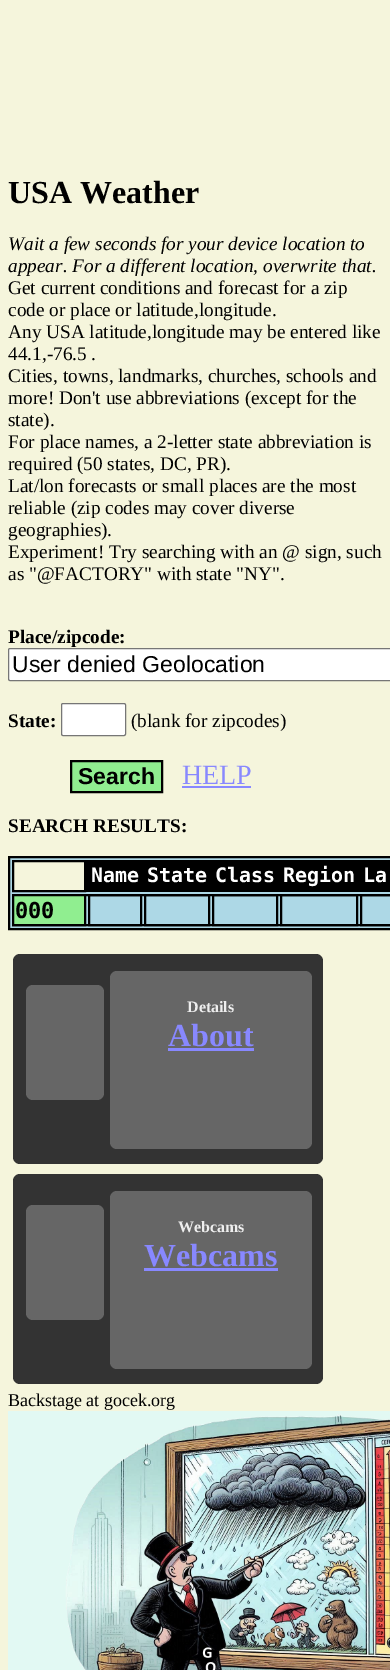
%!PS
<< /PageSize [390 1670] >> setpagedevice
/mt/moveto load def
/li/lineto load def
/cp/closepath load def
/fl/fill load def
/st/stroke load def
/gs/gsave load def
/gr/grestore load def
/lw/setlinewidth load def
/co { dup -16 bitshift 255 div exch dup -8 bitshift 255 and 255 div exch 255 and 255 div setrgbcolor } def
/fn { [ exch dup neg 0 0 3 -1 roll 0 0 ] selectfont } def
/tx { co fn moveto show } def
/bx { co rectfill } def
/rr { 5 dict begin { /r /h /w /y /x } { exch def } forall
  x r add y moveto x w add y 2 copy h add r arct x w add y h add x 1 index r arct
  x y h add x y r arct x y 2 copy exch w add exch r arct closepath end } def
/im { 5 dict begin { /h /w /y /x /name } { exch def } forall
  gsave x y translate w h scale
  w h 8 [w 0 0 h 0 0] name (r) file false 3 colorimage grestore end } def
0 1670 translate 1 -1 scale
4 setmiterlimit
0 0 390 1670 16#F5F5DC bx
16#FFFFFF co
8.5 648.5 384 32 1.5 rr gs fl gr
16#767676 co
st
16#FFFFFF co
61.5 703.5 64 32 1.5 rr gs fl gr
16#767676 co
st
16#90EE90 co
71 761 mt 162 761 li 162 792 li 71 792 li cp gs fl gr
16#000000 co
2 lw
st
182 786 69 2 16#8888FF bx
16#ADD8E6 co
9 857 mt 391 857 li 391 929 li 9 929 li cp gs fl gr
16#000000 co
st
86 860 304 32 16#000000 bx
16#F5F5DC co
13 861 mt 85 861 li 85 891 li 13 891 li cp gs fl gr
16#000000 co
st
13 895 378 30 rectstroke
16#90EE90 co
13 895 mt 85 895 li 85 925 li 13 925 li cp gs fl gr
16#000000 co
st
89 895 52 30 rectstroke
145 895 64 30 rectstroke
213 895 64 30 rectstroke
281 895 76 30 rectstroke
361 895 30 30 rectstroke
16#333333 co
13 954 310 210 7 rr fl
16#666666 co
26 985 78 115 7 rr fl
110 971 202 178 7 rr fl
168 1048 86 3 16#8888FF bx
16#333333 co
13 1174 310 210 7 rr fl
16#666666 co
26 1205 78 115 7 rr fl
110 1191 202 178 7 rr fl
144 1268 134 3 16#8888FF bx
(media/1.raw) 8 1411 382 259 im
(USA Weather) 8 203 /LiberationSerif-Bold 32 16#000000 tx
(Wait a few seconds for your device location to) 8 250 /LiberationSerif-Italic 19.25 16#000000 tx
(appear. For a different location, overwrite that.) 8 272 /LiberationSerif-Italic 19.25 16#000000 tx
(Get current conditions and forecast for a zip) 8 294 /LiberationSerif-Regular 19.25 16#000000 tx
(code or place or latitude,longitude.) 8 316 /LiberationSerif-Regular 19.25 16#000000 tx
(Any USA latitude,longitude may be entered like) 8 338 /LiberationSerif-Regular 19.25 16#000000 tx
(44.1,-76.5 .) 8 360 /LiberationSerif-Regular 19.25 16#000000 tx
(Cities, towns, landmarks, churches, schools and) 8 382 /LiberationSerif-Regular 19.25 16#000000 tx
(more! Don't use abbreviations \(except for the) 8 404 /LiberationSerif-Regular 19.25 16#000000 tx
(state\).) 8 426 /LiberationSerif-Regular 19.25 16#000000 tx
(For place names, a 2-letter state abbreviation is) 8 448 /LiberationSerif-Regular 19.25 16#000000 tx
(required \(50 states, DC, PR\).) 8 470 /LiberationSerif-Regular 19.25 16#000000 tx
(Lat/lon forecasts or small places are the most) 8 492 /LiberationSerif-Regular 19.25 16#000000 tx
(reliable \(zip codes may cover diverse) 8 514 /LiberationSerif-Regular 19.25 16#000000 tx
(geographies\).) 8 536 /LiberationSerif-Regular 19.25 16#000000 tx
(Experiment! Try searching with an @ sign, such) 8 558 /LiberationSerif-Regular 19.25 16#000000 tx
(as "@FACTORY" with state "NY".) 8 580 /LiberationSerif-Regular 19.25 16#000000 tx
(Place/zipcode:) 8 643 /LiberationSerif-Bold 19.25 16#000000 tx
(User denied Geolocation) 12 672 /LiberationSans-Regular 23 16#000000 tx
(State:) 8 727 /LiberationSerif-Bold 19.25 16#000000 tx
(\(blank for zipcodes\)) 131 727 /LiberationSerif-Regular 19.25 16#000000 tx
(Search) 78 784 /LiberationSans-Bold 23 16#000000 tx
(HELP) 182 784 /LiberationSerif-Regular 28 16#8888FF tx
(SEARCH RESULTS:) 8 832 /LiberationSerif-Bold 19.25 16#000000 tx
(Name) 91 882 /DejaVuSansMono-Bold 20 16#FFFFFF tx
(State) 147 882 /DejaVuSansMono-Bold 20 16#FFFFFF tx
(Class) 215 882 /DejaVuSansMono-Bold 20 16#FFFFFF tx
(Region) 283 882 /DejaVuSansMono-Bold 20 16#FFFFFF tx
(La) 363 882 /DejaVuSansMono-Bold 20 16#FFFFFF tx
(000) 15 918 /DejaVuSansMono-Bold 22 16#000000 tx
(Details) 187 1012 /LiberationSerif-Bold 16 16#EEEEEE tx
(About) 168 1046 /LiberationSerif-Bold 32 16#8888FF tx
(Webcams) 178 1232 /LiberationSerif-Bold 16 16#EEEEEE tx
(Webcams) 144 1266 /LiberationSerif-Bold 32 16#8888FF tx
(Backstage at gocek.org) 8 1406 /LiberationSerif-Regular 18 16#000000 tx
showpage
